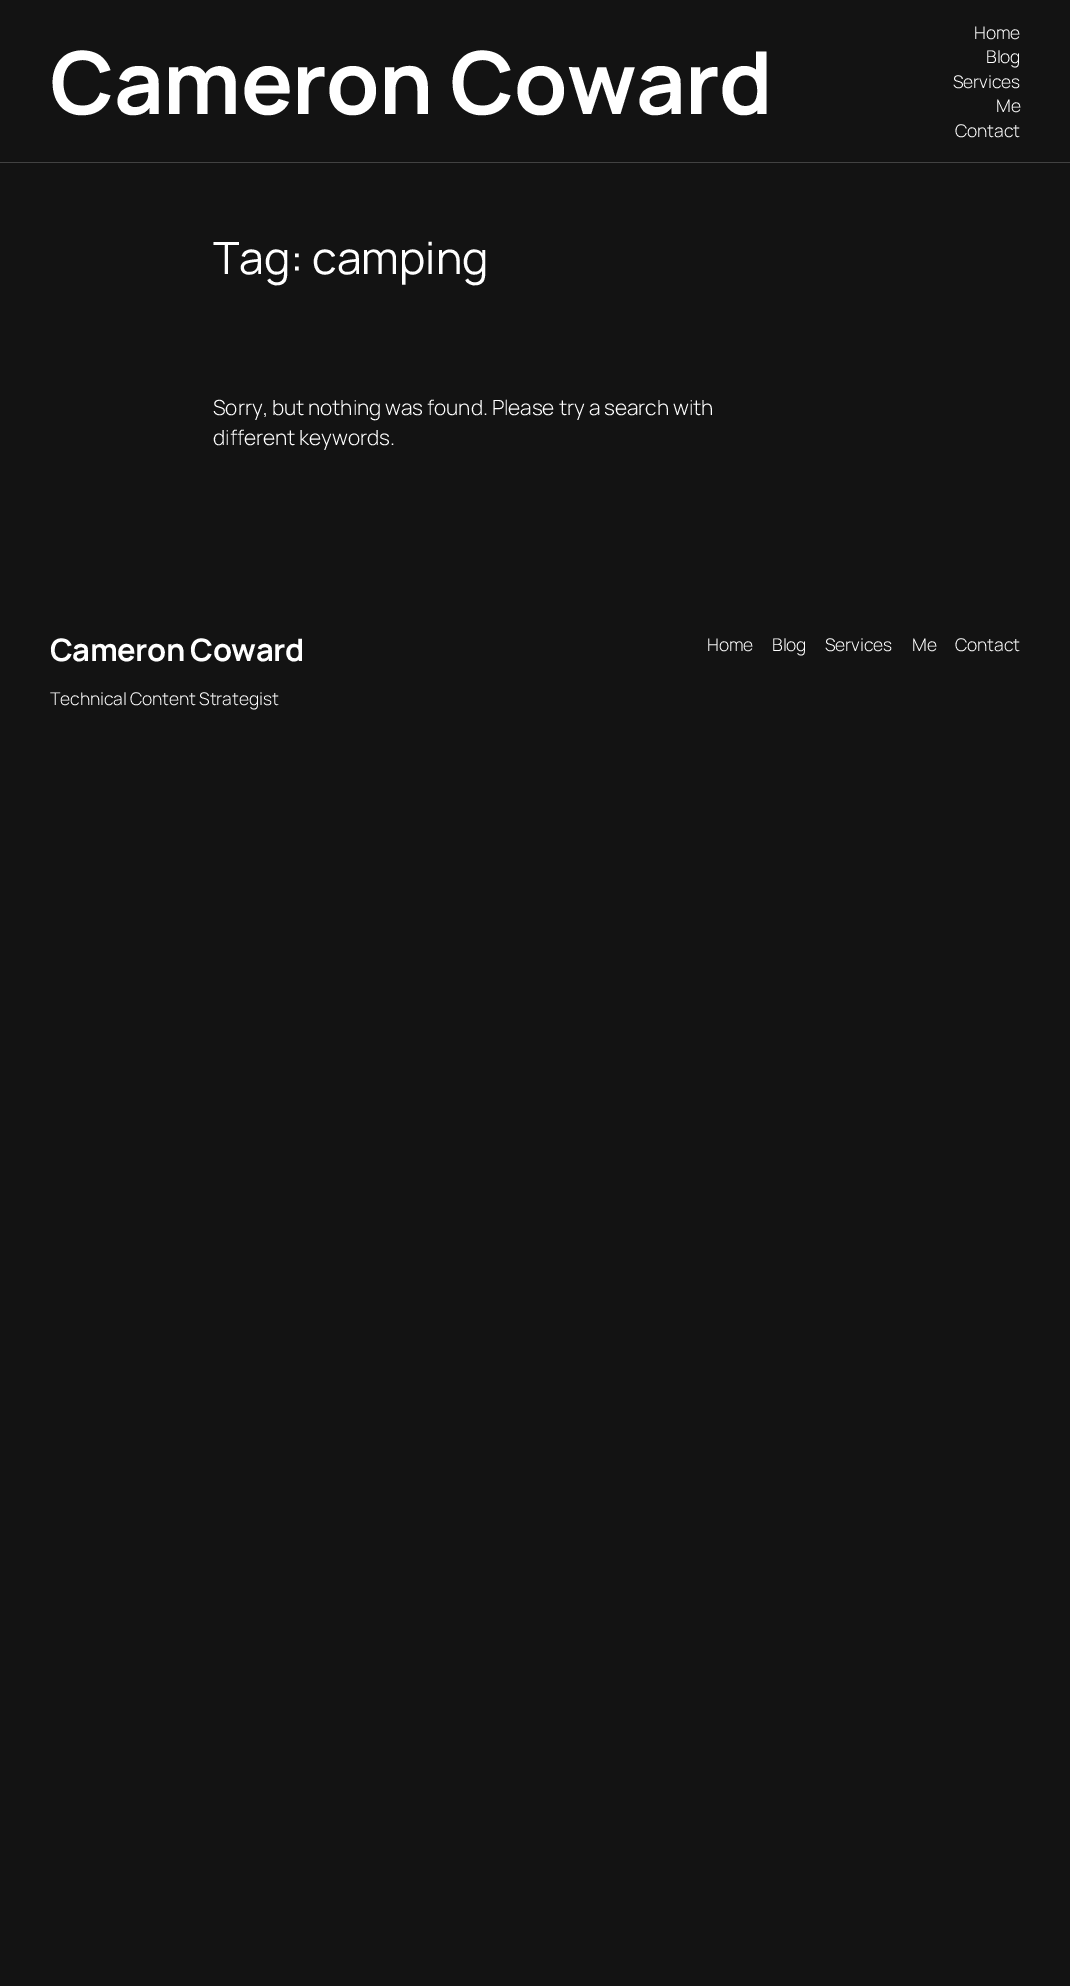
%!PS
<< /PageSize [1070 1986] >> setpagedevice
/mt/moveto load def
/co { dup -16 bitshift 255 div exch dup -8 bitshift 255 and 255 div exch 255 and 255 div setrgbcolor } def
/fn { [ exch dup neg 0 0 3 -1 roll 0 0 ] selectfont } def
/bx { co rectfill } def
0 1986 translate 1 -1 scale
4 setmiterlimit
0 0 1070 1986 16#131313 bx
0 162 1070 1 16#424242 bx
/Manrope-Bold 86.75 fn
16#FFFFFF co
50 114 mt -.5 0 (Cameron Coward) ashow
/Manrope-Light 17.5 fn
974 39 mt -.1 0 (Home) ashow
986 63 mt -.1 0 (Blog) ashow
953 88 mt -.1 0 (Services) ashow
996 112 mt -.1 0 (Me) ashow
955 137 mt -.1 0 (Contact) ashow
/Manrope-Regular 44.5 fn
213 274 mt -.1 0 (Tag: camping) ashow
/Manrope-Light 20.9 fn
213 415 mt -.1 0 (Sorry, but nothing was found. Please try a search with) ashow
213 445 mt -.1 0 (different keywords.) ashow
/Manrope-Bold 31 fn
50 661 mt -.5 0 (Cameron Coward) ashow
/Manrope-Light 17.5 fn
50 705 mt -.1 0 (Technical Content Strategist) ashow
707 651 mt -.1 0 (Home) ashow
772 651 mt -.1 0 (Blog) ashow
825 651 mt -.1 0 (Services) ashow
912 651 mt -.1 0 (Me) ashow
955 651 mt -.1 0 (Contact) ashow
showpage
